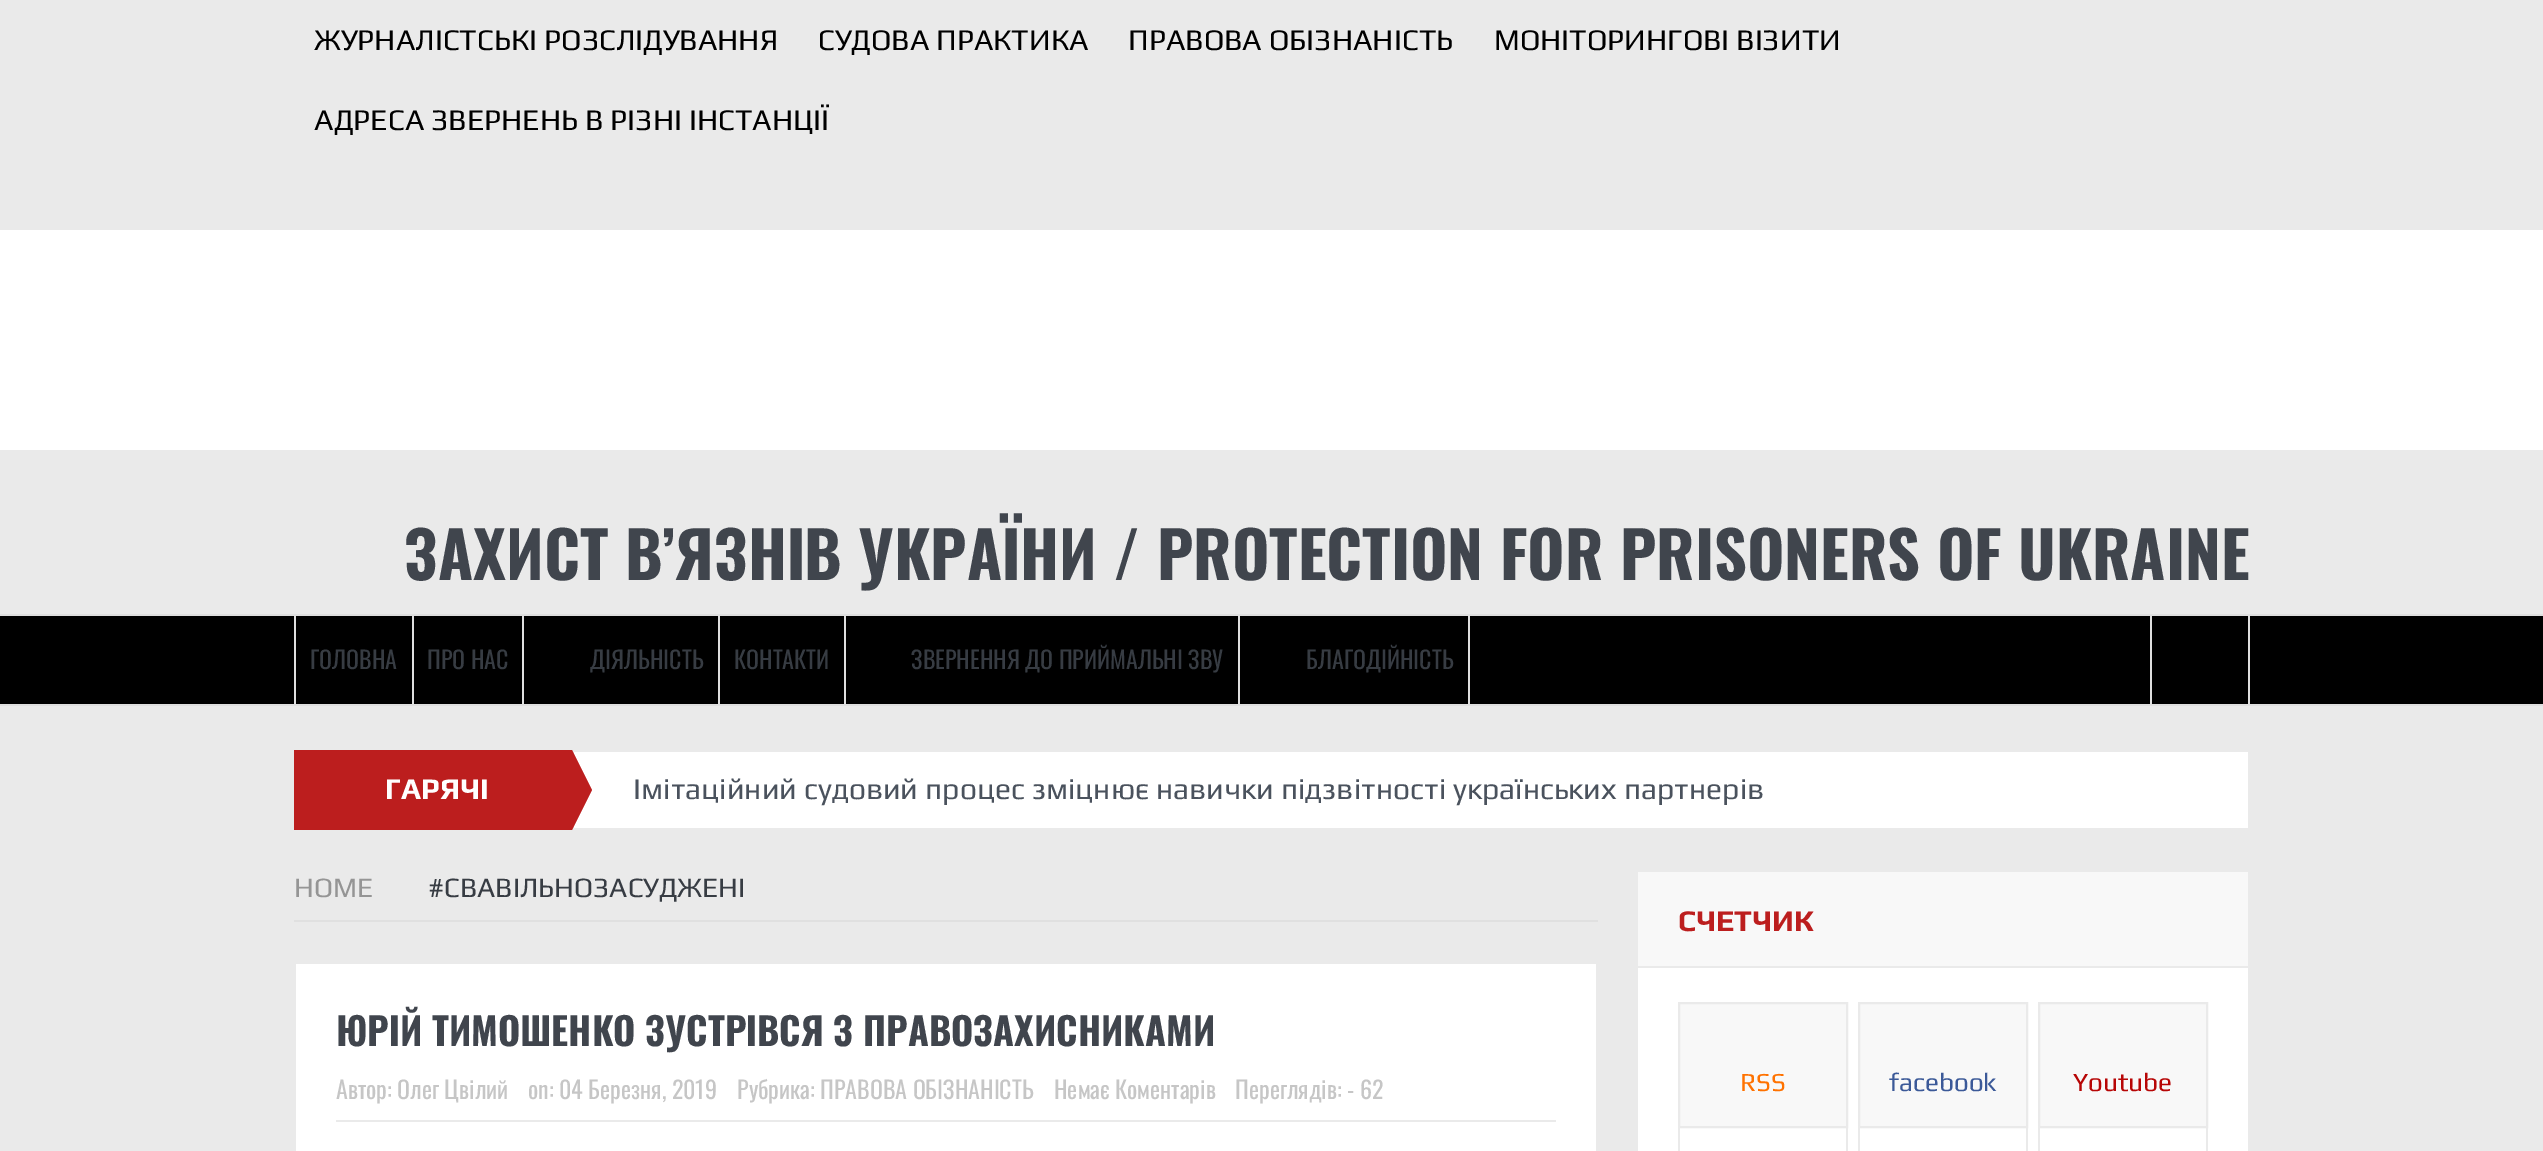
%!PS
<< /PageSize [2543 1151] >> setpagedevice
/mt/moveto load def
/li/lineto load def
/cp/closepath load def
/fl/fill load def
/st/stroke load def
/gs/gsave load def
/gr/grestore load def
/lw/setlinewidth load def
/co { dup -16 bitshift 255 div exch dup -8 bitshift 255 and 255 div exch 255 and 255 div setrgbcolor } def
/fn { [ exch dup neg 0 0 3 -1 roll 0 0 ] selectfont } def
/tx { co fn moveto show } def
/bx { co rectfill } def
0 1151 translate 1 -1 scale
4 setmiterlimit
0 0 2543 1151 16#EAEAEA bx
0 230 2543 220 16#FFFFFF bx
0 614 2543 2 16#DFDFDF bx
0 616 2543 88 16#000000 bx
0 704 2543 2 16#DFDFDF bx
294 616 2 88 16#DFDFDF bx
412 616 2 88 16#DFDFDF bx
522 616 2 88 16#DFDFDF bx
718 616 2 88 16#DFDFDF bx
844 616 2 88 16#DFDFDF bx
1468 616 2 88 16#DFDFDF bx
1238 616 2 88 16#DFDFDF bx
2248 616 2 88 16#DFDFDF bx
2150 616 2 88 16#DFDFDF bx
294 750 278 80 16#BC1E1E bx
574 752 1674 76 16#FFFFFF bx
16#BC1E1E co
572 830 mt 572 750 li 592 790 li cp fl
294 920 1304 2 16#E0E0E0 bx
296 964 1300 187 16#FFFFFF bx
336 1120 1220 2 16#EAEAEA bx
1638 968 610 183 16#FFFFFF bx
1638 872 610 94 16#F8F8F8 bx
1679 1003 mt 1847 1003 li 1847 1127 li 1679 1127 li cp gs fl gr
16#EAEAEA co
2 lw
st
1846 1128 2 23 16#EAEAEA bx
1678 1128 2 23 16#EAEAEA bx
16#F8F8F8 co
1859 1003 mt 2027 1003 li 2027 1127 li 1859 1127 li cp gs fl gr
16#EAEAEA co
st
2026 1128 2 23 16#EAEAEA bx
1858 1128 2 23 16#EAEAEA bx
16#F8F8F8 co
2039 1003 mt 2207 1003 li 2207 1127 li 2039 1127 li cp gs fl gr
16#EAEAEA co
st
2206 1128 2 23 16#EAEAEA bx
2038 1128 2 23 16#EAEAEA bx
(ЖУРНАЛІСТСЬКІ РОЗСЛІДУВАННЯ) 314 50 /Play-Regular 30 16#000000 tx
(СУДОВА ПРАКТИКА) 818 50 /Play-Regular 30 16#000000 tx
(ПРАВОВА ОБІЗНАНІСТЬ) 1128 50 /Play-Regular 30 16#000000 tx
(МОНІТОРИНГОВІ ВІЗИТИ) 1494 50 /Play-Regular 30 16#000000 tx
(АДРЕСА ЗВЕРНЕНЬ В РІЗНІ ІНСТАНЦІЇ) 314 130 /Play-Regular 30 16#000000 tx
(ЗАХИСТ В’ЯЗНІВ УКРАЇНИ / PROTECTION FOR PRISONERS OF UKRAINE) 404 580 /Oswald-Bold 64 16#40454D tx
(ГОЛОВНА) 310 669 /Oswald-Regular 24 16#373C43 tx
(ПРО НАС) 427 669 /Oswald-Regular 24 16#373C43 tx
(ДІЯЛЬНІСТЬ) 590 669 /Oswald-Regular 24 16#373C43 tx
(КОНТАКТИ) 734 669 /Oswald-Regular 24 16#373C43 tx
(ЗВЕРНЕННЯ ДО ПРИЙМАЛЬНІ ЗВУ) 911 669 /Oswald-Regular 24 16#373C43 tx
(БЛАГОДІЙНІСТЬ) 1306 669 /Oswald-Regular 24 16#373C43 tx
(ГАРЯЧІ) 385 799 /Play-Bold 30 16#FFFFFF tx
(Імітаційний судовий процес зміцнює навички підзвітності українських партнерів) 633 799 /Play-Regular 30 16#4A525D tx
(HOME) 294 897 /Play-Regular 28 16#959595 tx
(#СВАВІЛЬНОЗАСУДЖЕНІ) 428 897 /Play-Regular 28 16#373C43 tx
(ЮРІЙ ТИМОШЕНКО ЗУСТРІВСЯ З ПРАВОЗАХИСНИКАМИ) 336 1046 /Oswald-Bold 38 16#40454D tx
(Автор: Олег Цвілий) 336 1099 /Oswald-Regular 24 16#C6C6C6 tx
(on: 04 Березня, 2019) 528 1099 /Oswald-Regular 24 16#C6C6C6 tx
(Рубрика: ПРАВОВА ОБІЗНАНІСТЬ) 737 1099 /Oswald-Regular 24 16#C6C6C6 tx
(Немає Коментарів) 1054 1099 /Oswald-Regular 24 16#C6C6C6 tx
(Переглядів: - 62) 1235 1099 /Oswald-Regular 24 16#C6C6C6 tx
(СЧЕТЧИК) 1678 931 /Play-Bold 30 16#BC1E1E tx
(RSS) 1740 1091 /Play-Regular 26 16#FF7200 tx
(facebook) 1889 1091 /Play-Regular 26 16#3B5998 tx
(Youtube) 2073 1091 /Play-Regular 26 16#B70606 tx
showpage
